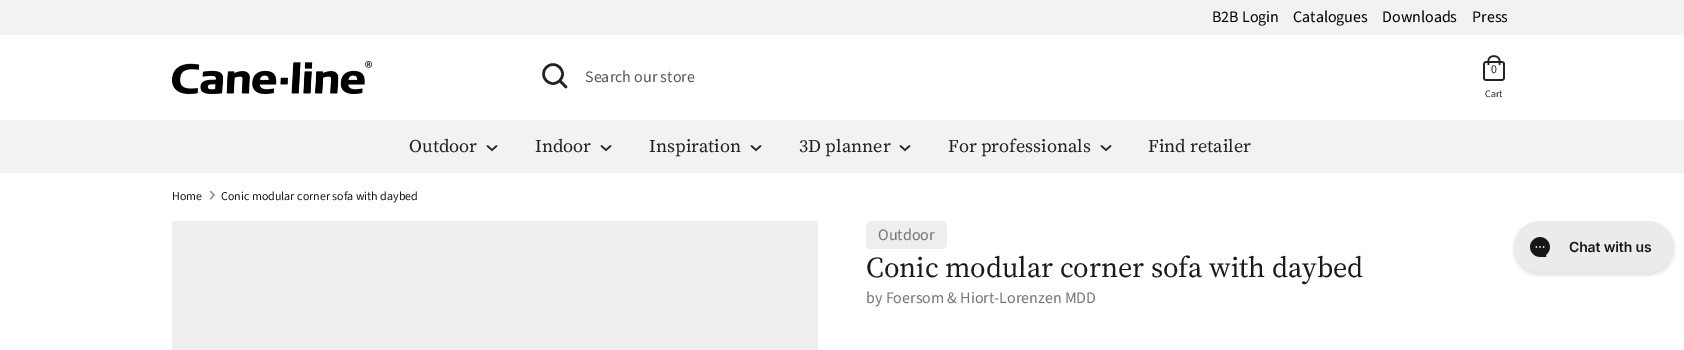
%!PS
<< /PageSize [1684 350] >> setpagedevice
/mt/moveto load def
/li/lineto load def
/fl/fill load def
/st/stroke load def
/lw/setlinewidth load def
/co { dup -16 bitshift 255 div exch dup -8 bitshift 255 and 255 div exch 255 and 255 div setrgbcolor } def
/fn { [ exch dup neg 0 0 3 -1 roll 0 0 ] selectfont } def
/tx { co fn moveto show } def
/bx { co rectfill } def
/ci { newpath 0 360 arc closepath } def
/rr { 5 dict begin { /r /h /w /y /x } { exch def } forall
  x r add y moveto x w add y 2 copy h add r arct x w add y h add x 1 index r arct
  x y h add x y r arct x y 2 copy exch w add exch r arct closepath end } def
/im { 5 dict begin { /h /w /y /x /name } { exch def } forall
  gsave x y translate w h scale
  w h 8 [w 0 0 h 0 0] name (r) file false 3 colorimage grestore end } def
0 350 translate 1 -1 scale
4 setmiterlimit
0 0 1684 350 16#FFFFFF bx
0 0 1684 35 16#F2F2F2 bx
(media/1.raw) 172 61 200 33 im
16#222222 co
2.5 lw
553 74 9.5 ci st
1 setlinecap
566 87 mt 560 81 li st
(media/2.raw) 1483 55 22 26 im
0 120 1684 53 16#F2F2F2 bx
16#222222 co
1.5 lw
487.5 146 mt 492 150 li 496.5 146 li st
601.5 146 mt 606 150 li 610.5 146 li st
751.5 146 mt 756 150 li 760.5 146 li st
900.5 146 mt 905 150 li 909.5 146 li st
1101.5 146 mt 1106 150 li 1110.5 146 li st
16#8D8D8D co
1.2 lw
210.5 199 mt 214 195 li 210.5 191.5 li st
172 221 646 129 16#EFEEEE bx
866 221 81 28 5 rr fl
(media/3.raw) 1512 221 164 56 im
(B2B Login) 1212 22 /SourceSansPro-Regular 16 16#000000 tx
(Catalogues) 1293 22 /SourceSansPro-Regular 16 16#000000 tx
(Downloads) 1382 22 /SourceSansPro-Regular 16 16#000000 tx
(Press) 1472 22 /SourceSansPro-Regular 16 16#000000 tx
(Search our store) 585 82 /SourceSansPro-Regular 16 16#595959 tx
(0) 1491 73 /SourceSansPro-Regular 12 16#222222 tx
(Cart) 1485 97 /SourceSansPro-Regular 10 16#222222 tx
(Outdoor) 409 152 /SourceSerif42-Regular 18 16#222222 tx
(Indoor) 535 152 /SourceSerif42-Regular 18 16#222222 tx
(Inspiration) 649 152 /SourceSerif42-Regular 18 16#222222 tx
(3D planner) 799 152 /SourceSerif42-Regular 18 16#222222 tx
(For professionals) 948 152 /SourceSerif42-Regular 18 16#222222 tx
(Find retailer) 1148 152 /SourceSerif42-Regular 18 16#222222 tx
(Home) 172 200 /SourceSansPro-Regular 12 16#1A1A1A tx
(Conic modular corner sofa with daybed) 221 200 /SourceSansPro-Regular 12 16#1A1A1A tx
(Outdoor) 878 240 /SourceSansPro-Regular 16 16#757575 tx
(Conic modular corner sofa with daybed) 866 277 /SourceSerif4-Regular 28.75 16#1A1A1A tx
(by Foersom & Hiort-Lorenzen MDD) 866 303 /SourceSansPro-Regular 16 16#757575 tx
showpage
